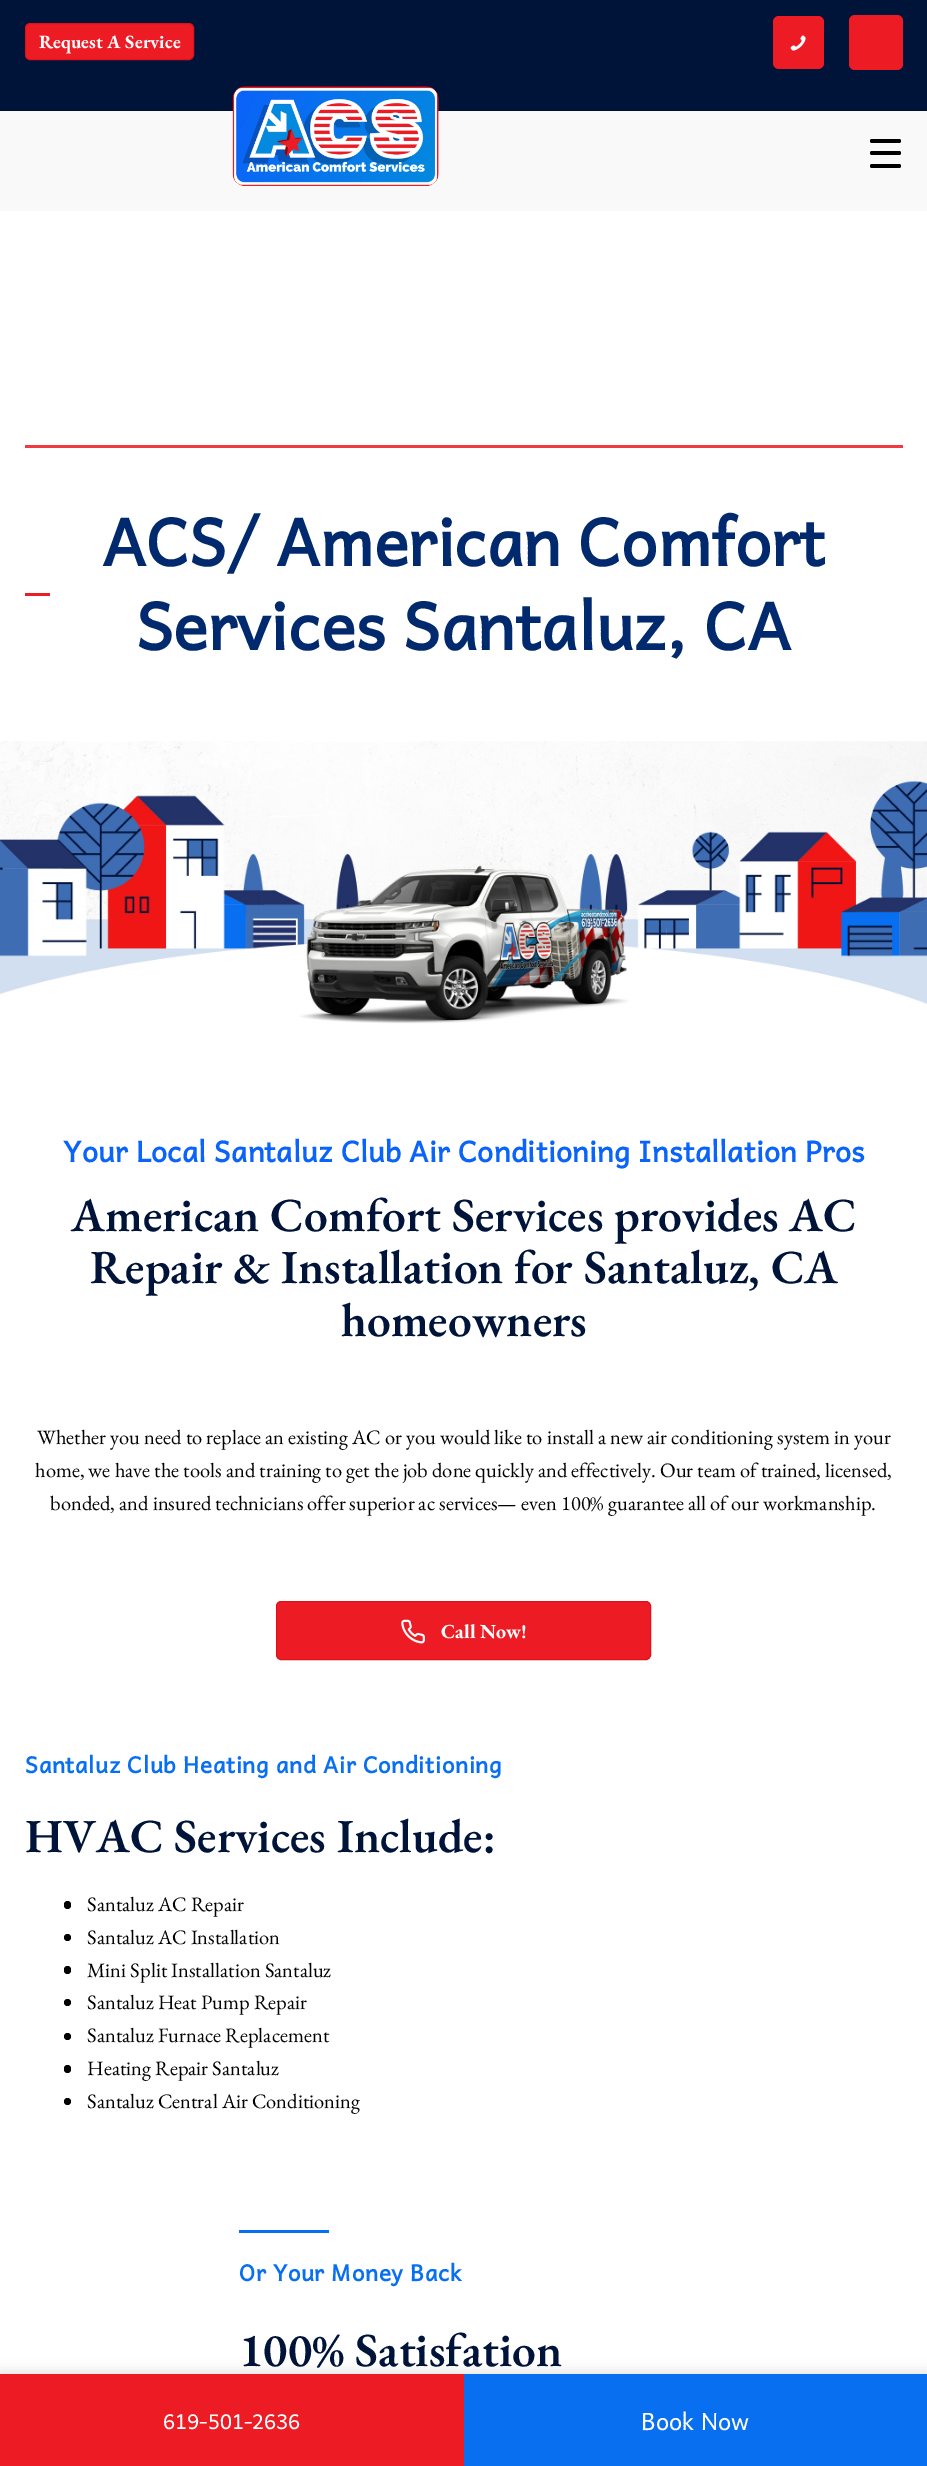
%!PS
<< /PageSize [927 2466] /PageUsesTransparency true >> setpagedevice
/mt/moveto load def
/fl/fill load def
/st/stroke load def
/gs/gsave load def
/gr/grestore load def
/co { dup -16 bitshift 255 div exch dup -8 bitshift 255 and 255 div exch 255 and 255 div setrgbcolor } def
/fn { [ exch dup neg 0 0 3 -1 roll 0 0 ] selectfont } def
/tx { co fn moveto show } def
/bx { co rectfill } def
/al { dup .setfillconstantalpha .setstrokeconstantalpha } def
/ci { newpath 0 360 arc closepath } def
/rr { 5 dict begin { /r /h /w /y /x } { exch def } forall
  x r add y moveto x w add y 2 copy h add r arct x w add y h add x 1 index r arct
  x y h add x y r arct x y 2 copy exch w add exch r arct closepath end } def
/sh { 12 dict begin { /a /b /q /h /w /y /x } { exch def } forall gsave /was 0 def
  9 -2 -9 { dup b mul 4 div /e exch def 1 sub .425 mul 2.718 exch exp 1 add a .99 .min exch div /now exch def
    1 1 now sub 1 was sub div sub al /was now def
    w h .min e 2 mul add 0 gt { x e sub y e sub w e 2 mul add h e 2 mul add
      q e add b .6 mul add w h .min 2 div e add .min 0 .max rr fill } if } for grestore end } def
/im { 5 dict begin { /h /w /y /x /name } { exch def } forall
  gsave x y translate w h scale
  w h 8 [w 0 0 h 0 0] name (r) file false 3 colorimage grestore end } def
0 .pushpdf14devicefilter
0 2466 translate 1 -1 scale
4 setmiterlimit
0 0 927 2466 16#00143A bx
16#ED1C24 co
25.5 23.5 168 36 4.5 rr gs fl gr
16#E11018 co
st
16#ED1C24 co
773 16 51 53 6 rr fl
(media/1.raw) 790 35 16 16 im
849 15 54 55 6 rr fl
0 111 927 100 16#F9F9F9 bx
(media/2.raw) 232 86 207 100 im
0 211 927 2163 16#FFFFFF bx
25 445 878 3 16#EF3A40 bx
25 593 25 3 16#ED1C24 bx
(media/3.raw) 0 741 927 283 im
276.5 1601.5 374 58 4.5 rr gs fl gr
16#E11018 co
st
(media/4.raw) 401 1619 24 25 im
16#000000 co
64 1901 7 8 3.5 rr fl
67.5 1937.5 3.5 ci fl
64 1966 7 8 3.5 rr fl
67.5 2002.5 3.5 ci fl
67.5 2036.5 3.5 ci fl
64 2065 7 8 3.5 rr fl
67.5 2101.5 3.5 ci fl
239 2230 90 3 16#096FF1 bx
16#000000 co
0 2371 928 93 0 6 .1 sh
0 2374 464 92 16#ED1C24 bx
464 2374 463 92 16#096FF1 bx
16#000000 co
870 151 31 4 2 rr fl
870 139 31 4 2 rr fl
870 164 31 4 2 rr fl
(Request A Service) 39 48 /EBGaramond-Bold 18.75 16#FFFFFF tx
(ACS/ American Comfort) 102 566 /Andika-Bold 65 16#002A6D tx
(Services Santaluz, CA) 136 650 /Andika-Bold 65 16#002A6D tx
/Andika-Bold 28.75 fn
16#0B64F9 co
63 1162 mt .25 0 (Your Local Santaluz Club Air Conditioning Installation Pros) ashow
(American Comfort Services provides AC) 71 1231 /EBGaramond-SemiBold 47.5 16#00143A tx
(Repair & Installation for Santaluz, CA) 90 1283 /EBGaramond-SemiBold 47.5 16#00143A tx
(homeowners) 341 1336 /EBGaramond-SemiBold 47.5 16#00143A tx
(Whether you need to replace an existing AC or you would like to install a new air conditioning system in your) 37 1444 /EBGaramond-Regular 20.5 16#000000 tx
(home, we have the tools and training to get the job done quickly and effectively. Our team of trained, licensed,) 35 1477 /EBGaramond-Regular 20.5 16#000000 tx
(bonded, and insured technicians offer superior ac services— even 100% guarantee all of our workmanship.) 50 1510 /EBGaramond-Regular 20.5 16#000000 tx
(Call Now!) 441 1638 /EBGaramond-Bold 20 16#FFFFFF tx
/Andika-Bold 22.5 fn
16#096FF1 co
25 1773 mt .6 0 (Santaluz Club Heating and Air Conditioning) ashow
(HVAC Services Include:) 25 1852 /EBGaramond-SemiBold 47.5 16#00143A tx
(Santaluz AC Repair) 87 1911 /EBGaramond-Regular 20.5 16#000000 tx
(Santaluz AC Installation) 87 1944 /EBGaramond-Regular 20.5 16#000000 tx
(Mini Split Installation Santaluz) 87 1977 /EBGaramond-Regular 20.5 16#000000 tx
(Santaluz Heat Pump Repair) 87 2009 /EBGaramond-Regular 20.5 16#000000 tx
(Santaluz Furnace Replacement) 87 2042 /EBGaramond-Regular 20.5 16#000000 tx
(Heating Repair Santaluz) 87 2075 /EBGaramond-Regular 20.5 16#000000 tx
(Santaluz Central Air Conditioning) 87 2108 /EBGaramond-Regular 20.5 16#000000 tx
/Andika-Bold 22.5 fn
16#096FF1 co
239 2281 mt .6 0 (Or Your Money Back) ashow
(100% Satisfation) 239 2366 /EBGaramond-SemiBold 47.5 16#00143A tx
(619-501-2636) 163 2429 /Andika-Regular 20.5 16#FFFFFF tx
(Book Now) 641 2430 /Andika-Regular 23.75 16#FFFFFF tx
.poppdf14devicefilter showpage
